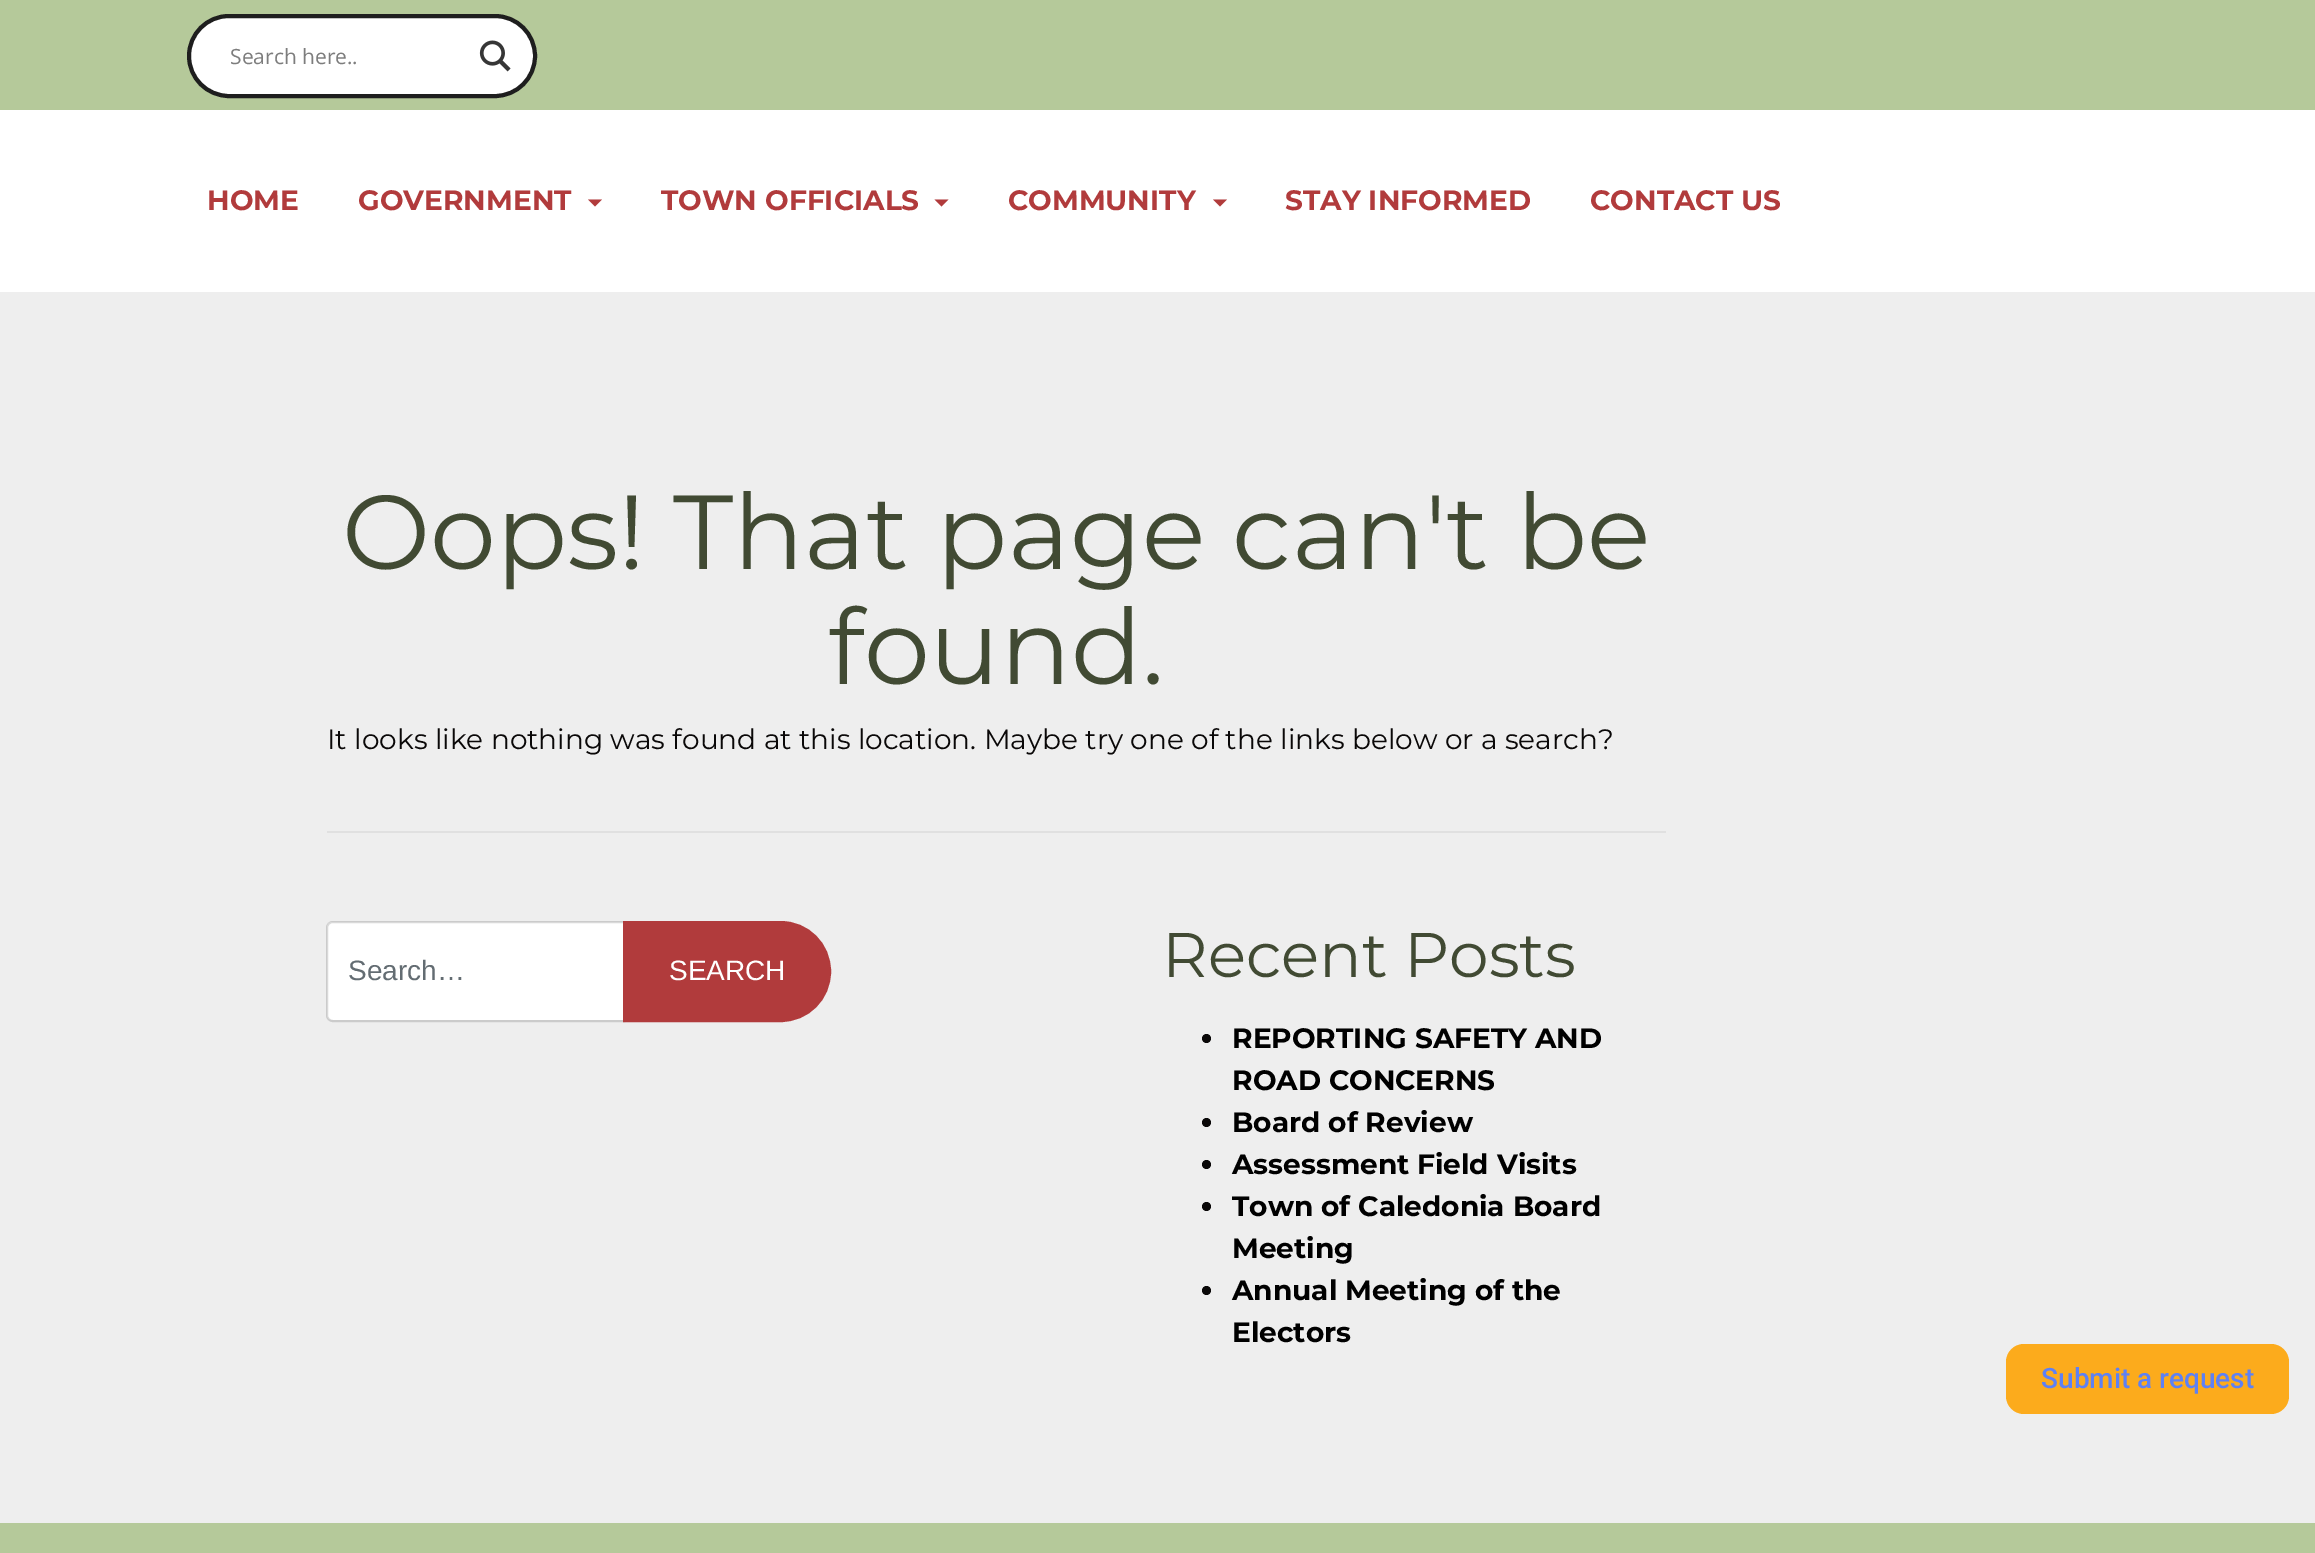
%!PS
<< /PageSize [2315 1553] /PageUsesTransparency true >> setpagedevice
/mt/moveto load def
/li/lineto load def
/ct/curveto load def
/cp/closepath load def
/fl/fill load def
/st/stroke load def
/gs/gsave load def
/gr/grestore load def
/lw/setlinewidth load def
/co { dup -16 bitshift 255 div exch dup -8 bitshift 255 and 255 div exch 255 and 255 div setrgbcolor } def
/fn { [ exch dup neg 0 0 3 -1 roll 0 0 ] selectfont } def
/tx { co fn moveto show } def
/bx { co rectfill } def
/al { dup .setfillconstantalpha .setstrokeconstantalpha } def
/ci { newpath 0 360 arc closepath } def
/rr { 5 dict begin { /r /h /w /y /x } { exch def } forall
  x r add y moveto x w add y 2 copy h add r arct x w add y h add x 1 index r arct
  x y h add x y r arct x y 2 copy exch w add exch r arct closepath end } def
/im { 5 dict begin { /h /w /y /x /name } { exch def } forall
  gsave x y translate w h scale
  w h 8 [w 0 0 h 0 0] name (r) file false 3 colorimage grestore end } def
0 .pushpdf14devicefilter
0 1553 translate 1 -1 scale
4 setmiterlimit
0 0 2315 1553 16#B5C99A bx
16#FFFFFF co
189 16 346 80 40 rr gs fl gr
16#1E1E1E co
4 lw
st
(media/1.raw) 479 40 32 32 im
0 110 2315 182 16#FFFFFF bx
16#B13B3C co
588 199.5 mt 602 199.5 li 595 206.5 li cp fl
934.5 199.5 mt 948.5 199.5 li 941.5 206.5 li cp fl
1213 199.5 mt 1227 199.5 li 1220 206.5 li cp fl
0 292 2315 1231 16#EEEEEE bx
327 831 1339 2 16#E0E0E0 bx
16#FFFFFF co
332 922 mt 623 922 li 623 1020 li 332 1020 li 329 1020 327 1018 327 1015 ct 327 927 li 327 924 329 922 332 922 ct cp fl
0.15 al
16#000000 co
2 lw
333 922 mt 624 922 li 624 1021 li 333 1021 li 329.5 1021 327 1018.5 327 1015 ct 327 928 li 327 924.5 329.5 922 333 922 ct cp st
1 al
16#B13B3C co
624 922 mt 780.5 922 li 808 922 830 944 830 971.5 ct 830 999 808 1021 780.5 1021 ct 624 1021 li cp gs fl gr
st
16#0A0808 co
1206.5 1038.5 4.5 ci fl
1206.5 1122.5 4.5 ci fl
1206.5 1164.5 4.5 ci fl
1206.5 1206.5 4.5 ci fl
1206.5 1290.5 4.5 ci fl
16#FCAB1C co
2006 1344 283 70 18 rr fl
gs
231 32 231 49 24.5 rr clip newpath
(Search here..) 230 64 /OpenSans-Regular 21 16#7D7D7D tx
gr
(HOME) 207 210 /Montserrat-Bold 28 16#B13B3C tx
(GOVERNMENT) 358 210 /Montserrat-Bold 28 16#B13B3C tx
(TOWN OFFICIALS) 661 210 /Montserrat-Bold 28 16#B13B3C tx
(COMMUNITY) 1008 210 /Montserrat-Bold 28 16#B13B3C tx
(STAY INFORMED) 1285 210 /Montserrat-Bold 28 16#B13B3C tx
(CONTACT US) 1590 210 /Montserrat-Bold 28 16#B13B3C tx
(Oops! That page can't be) 342 569 /Montserrat-Regular 105 16#414A33 tx
(found.) 828 684 /Montserrat-Regular 105 16#414A33 tx
(It looks like nothing was found at this location. Maybe try one of the links below or a search?) 327 749 /Montserrat-Regular 28 16#0A0808 tx
(Search…) 348 980 /LiberationSans-Regular 28 16#636C72 tx
(SEARCH) 669 980 /LiberationSans-Regular 28 16#FFFFFF tx
(Recent Posts) 1162 977 /Montserrat-Regular 63 16#414A33 tx
(REPORTING SAFETY AND) 1232 1048 /Montserrat-Bold 28 16#000000 tx
(ROAD CONCERNS) 1232 1090 /Montserrat-Bold 28 16#000000 tx
(Board of Review) 1232 1132 /Montserrat-Bold 28 16#000000 tx
(Assessment Field Visits) 1232 1174 /Montserrat-Bold 28 16#000000 tx
(Town of Caledonia Board) 1232 1216 /Montserrat-Bold 28 16#000000 tx
(Meeting) 1232 1258 /Montserrat-Bold 28 16#000000 tx
(Annual Meeting of the) 1232 1300 /Montserrat-Bold 28 16#000000 tx
(Electors) 1232 1342 /Montserrat-Bold 28 16#000000 tx
(Submit a request) 2041 1388 /Roboto-Medium 28 16#5E81F4 tx
.poppdf14devicefilter showpage
